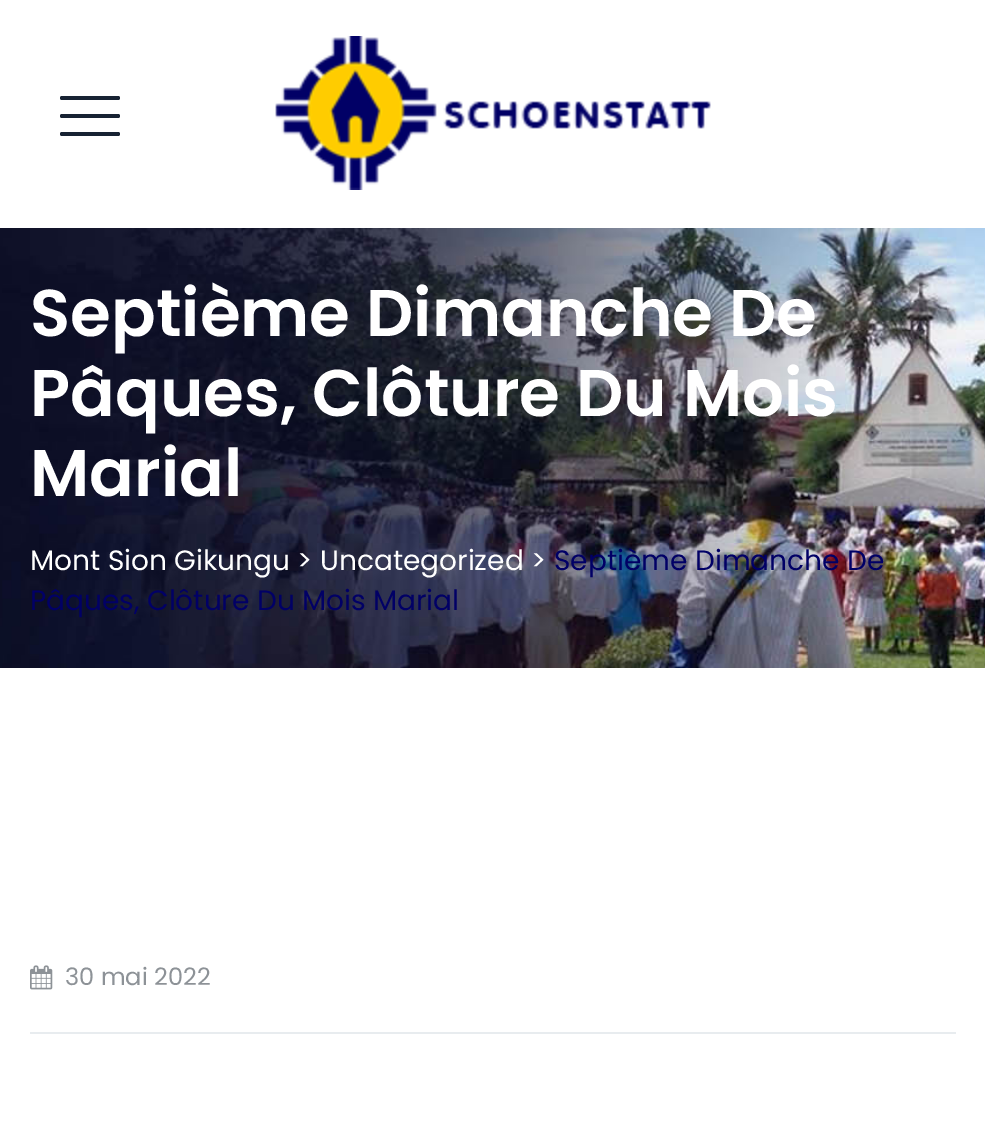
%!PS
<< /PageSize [985 1133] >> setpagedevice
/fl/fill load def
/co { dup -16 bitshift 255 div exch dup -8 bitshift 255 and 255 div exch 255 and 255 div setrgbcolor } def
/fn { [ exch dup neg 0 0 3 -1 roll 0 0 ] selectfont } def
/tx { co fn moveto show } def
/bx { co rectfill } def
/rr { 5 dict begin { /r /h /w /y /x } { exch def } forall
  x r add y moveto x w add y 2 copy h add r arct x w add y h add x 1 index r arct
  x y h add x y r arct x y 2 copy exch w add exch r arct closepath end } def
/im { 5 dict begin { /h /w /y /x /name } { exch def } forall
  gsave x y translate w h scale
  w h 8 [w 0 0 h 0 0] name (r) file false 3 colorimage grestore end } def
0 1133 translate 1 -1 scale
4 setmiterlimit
0 0 985 1133 16#FFFFFF bx
16#182333 co
60 114 60 4 2 rr fl
60 96 60 4 2 rr fl
60 132 60 4 2 rr fl
(media/1.raw) 275 36 436 154 im
(media/2.raw) 0 228 985 440 im
30 1032 926 2 16#E8ECEF bx
(media/3.raw) 30 965 23 25 im
(Septième Dimanche De) 30 336 /Poppins-SemiBold 66 16#FFFFFF tx
(Pâques, Clôture Du Mois) 30 416 /Poppins-SemiBold 66 16#FFFFFF tx
(Marial) 30 496 /Poppins-SemiBold 66 16#FFFFFF tx
(Mont Sion Gikungu > Uncategorized >) 30 570 /Poppins-Regular 28 16#FFFFFF tx
(Septième Dimanche De) 554 570 /Poppins-Regular 28 16#010066 tx
(Pâques, Clôture Du Mois Marial) 30 610 /Poppins-Regular 28 16#010066 tx
(30 mai 2022) 65 985 /Poppins-Regular 24 16#8D9297 tx
showpage
